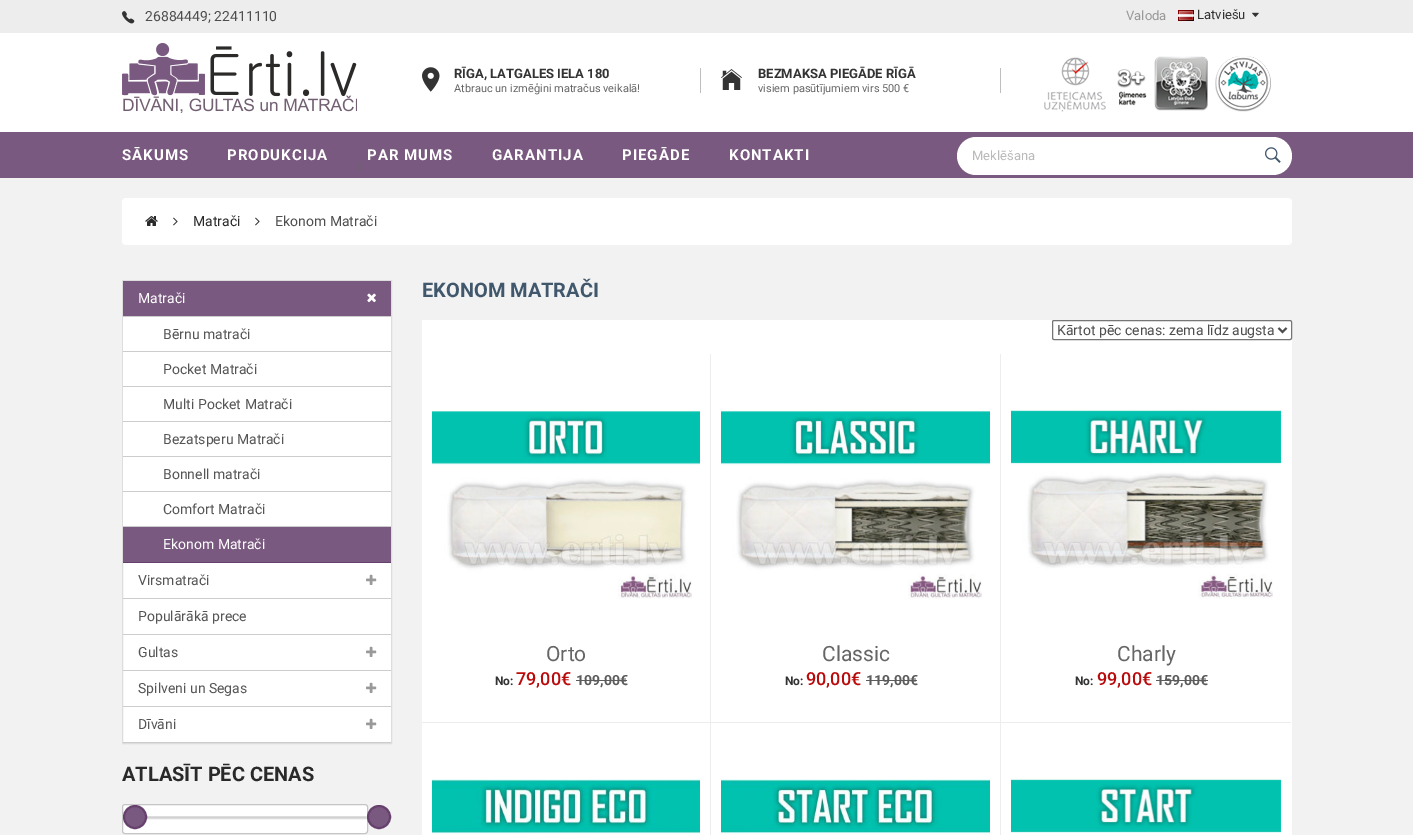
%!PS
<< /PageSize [1413 835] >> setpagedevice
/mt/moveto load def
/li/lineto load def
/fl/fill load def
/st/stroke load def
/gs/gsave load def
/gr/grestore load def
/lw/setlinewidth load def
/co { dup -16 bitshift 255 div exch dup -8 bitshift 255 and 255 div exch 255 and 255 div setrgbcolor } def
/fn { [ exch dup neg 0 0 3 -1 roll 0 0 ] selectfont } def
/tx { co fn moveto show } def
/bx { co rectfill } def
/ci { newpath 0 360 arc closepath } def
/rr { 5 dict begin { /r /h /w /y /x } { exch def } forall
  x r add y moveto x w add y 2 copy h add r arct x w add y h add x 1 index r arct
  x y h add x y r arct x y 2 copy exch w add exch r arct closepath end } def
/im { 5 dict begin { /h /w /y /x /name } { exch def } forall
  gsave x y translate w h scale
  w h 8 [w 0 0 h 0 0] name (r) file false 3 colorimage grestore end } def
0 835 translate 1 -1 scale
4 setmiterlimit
0 0 1413 835 16#F2F2F2 bx
0 0 1413 33 16#EDEDED bx
(media/1.raw) 122 11 13 13 im
(media/2.raw) 1178 10 16 11 im
(media/3.raw) 1252 12 7 5 im
0 33 1413 99 16#FFFFFF bx
(media/4.raw) 122 43 235 70 im
(media/5.raw) 422 67 18 25 im
700 68 1 25 16#BFBFBF bx
(media/6.raw) 721 69 21 21 im
1000 68 1 25 16#BFBFBF bx
(media/7.raw) 1044 56 227 56 im
0 132 1413 46 16#7A5980 bx
(media/8.raw) 358 163 4 8 im
16#FFFFFF co
957 137 335 38 19 rr fl
(media/9.raw) 1265 147 16 16 im
122 198 1170 47 4 rr fl
(media/10.raw) 145 216 13 10 im
(media/11.raw) 173 217 5 9 im
(media/11.raw) 255 217 5 9 im
123 563 268 179 16#FFFFFF bx
16#DDDDDD co
122.5 280.5 269 463 rectstroke
123 281 268 281 16#7A5980 bx
(media/12.raw) 367 293 9 10 im
123 317 268 34 16#FFFFFF bx
123 351 268 1 16#CCCCCC bx
123 316 268 1 16#CCCCCC bx
123 352 268 34 16#FFFFFF bx
123 386 268 1 16#CCCCCC bx
123 387 268 34 16#FFFFFF bx
123 421 268 1 16#CCCCCC bx
123 422 268 34 16#FFFFFF bx
123 456 268 1 16#CCCCCC bx
123 457 268 34 16#FFFFFF bx
123 491 268 1 16#CCCCCC bx
123 492 268 34 16#FFFFFF bx
123 526 268 1 16#CCCCCC bx
123 562 268 1 16#66416D bx
123 598 268 1 16#CCCCCC bx
(media/13.raw) 366 574 11 11 im
123 634 268 1 16#CCCCCC bx
123 670 268 1 16#CCCCCC bx
(media/13.raw) 366 646 11 11 im
123 706 268 1 16#CCCCCC bx
(media/13.raw) 366 682 11 11 im
123 742 268 1 16#CCCCCC bx
(media/13.raw) 366 718 11 11 im
16#FFFFFF co
122.5 804.5 245 29 2.5 rr gs fl gr
16#C5C5C5 co
st
16#CECECE co
123.5 816.5 243 2 1 rr gs fl gr
16#DDDDDD co
st
16#7A5980 co
135 817 11 ci gs fl gr
16#66416D co
2 lw
st
16#7A5980 co
379 817 11 ci gs fl gr
16#66416D co
st
422 320 870 515 16#FFFFFF bx
16#767676 co
1 lw
1052.5 320.5 239 19 1.5 rr st
16#4E4E4E co
2 lw
1278.5 328 mt 1282.5 332 li 1286.5 328 li st
710 354 1 481 16#EDEDED bx
422 722 289 1 16#EDEDED bx
(media/14.raw) 432 411 268 188 im
576 680 51 1 16#5C5C5C bx
1000 354 1 481 16#EDEDED bx
711 722 580 1 16#EDEDED bx
(media/15.raw) 721 411 269 188 im
866 680 51 1 16#5C5C5C bx
(media/16.raw) 1011 409 270 190 im
1156 680 52 1 16#5C5C5C bx
(media/17.raw) 432 779 268 56 im
(media/18.raw) 721 779 269 56 im
(media/19.raw) 1011 778 270 55 im
(26884449; 22411110) 145 21 /Roboto-Regular 14 16#4E4E4E tx
(Valoda) 1126 20 /Roboto-Regular 13 16#999999 tx
(Latviešu) 1197 19 /Roboto-Regular 13 16#333333 tx
(RĪGA, LATGALES IELA 180) 454 78 /Roboto-Bold 13 16#333333 tx
(Atbrauc un izmēģini matračus veikalā!) 454 92 /Roboto-Regular 11 16#666666 tx
(BEZMAKSA PIEGĀDE RĪGĀ) 758 78 /Roboto-Bold 13 16#333333 tx
(visiem pasūtījumiem virs 500 €) 758 92 /Roboto-Regular 11 16#666666 tx
/Roboto-Bold 15 fn
16#FFFFFF co
122 160 mt 1 0 (SĀKUMS) ashow
227 160 mt 1 0 (PRODUKCIJA) ashow
367 160 mt 1 0 (PAR MUMS) ashow
492 160 mt 1 0 (GARANTIJA) ashow
622 160 mt 1 0 (PIEGĀDE) ashow
729 160 mt 1 0 (KONTAKTI) ashow
(Meklēšana) 972 160 /Roboto-Regular 13 16#BABABA tx
(Matrači) 193 226 /Roboto-Regular 14 16#292929 tx
(Ekonom Matrači) 275 226 /Roboto-Regular 14 16#4E4E4E tx
(Matrači) 138 303 /Roboto-Regular 14 16#FFFFFF tx
(Bērnu matrači) 163 339 /Roboto-Regular 14 16#555555 tx
(Pocket Matrači) 163 374 /Roboto-Regular 14 16#555555 tx
(Multi Pocket Matrači) 163 409 /Roboto-Regular 14 16#555555 tx
(Bezatsperu Matrači) 163 444 /Roboto-Regular 14 16#555555 tx
(Bonnell matrači) 163 479 /Roboto-Regular 14 16#555555 tx
(Comfort Matrači) 163 514 /Roboto-Regular 14 16#555555 tx
(Ekonom Matrači) 163 549 /Roboto-Regular 14 16#FFFFFF tx
(Virsmatrači) 138 585 /Roboto-Regular 14 16#555555 tx
(Populārākā prece) 138 621 /Roboto-Regular 14 16#555555 tx
(Gultas) 138 657 /Roboto-Regular 14 16#555555 tx
(Spilveni un Segas) 138 693 /Roboto-Regular 14 16#555555 tx
(Dīvāni) 138 729 /Roboto-Regular 14 16#555555 tx
(ATLASĪT PĒC CENAS) 122 781 /Roboto-Bold 20 16#292929 tx
(EKONOM MATRAČI) 422 297 /Roboto-Bold 20 16#40576C tx
(Kārtot pēc cenas: zema līdz augsta) 1057 335 /Roboto-Regular 14 16#4E4E4E tx
(Orto) 546 661 /Roboto-Regular 21 16#666666 tx
(No:) 495 685 /Roboto-Bold 12 16#333333 tx
(79,00€) 516 685 /Roboto-Medium 18 16#B90B0B tx
(109,00€) 576 685 /Roboto-Bold 14 16#5C5C5C tx
(Classic) 822 661 /Roboto-Regular 21 16#666666 tx
(No:) 785 685 /Roboto-Bold 12 16#333333 tx
(90,00€) 806 685 /Roboto-Medium 18 16#B90B0B tx
(119,00€) 866 685 /Roboto-Bold 14 16#5C5C5C tx
(Charly) 1117 661 /Roboto-Regular 21 16#666666 tx
(No:) 1075 685 /Roboto-Bold 12 16#333333 tx
(99,00€) 1097 685 /Roboto-Medium 18 16#B90B0B tx
(159,00€) 1156 685 /Roboto-Bold 14 16#5C5C5C tx
showpage
